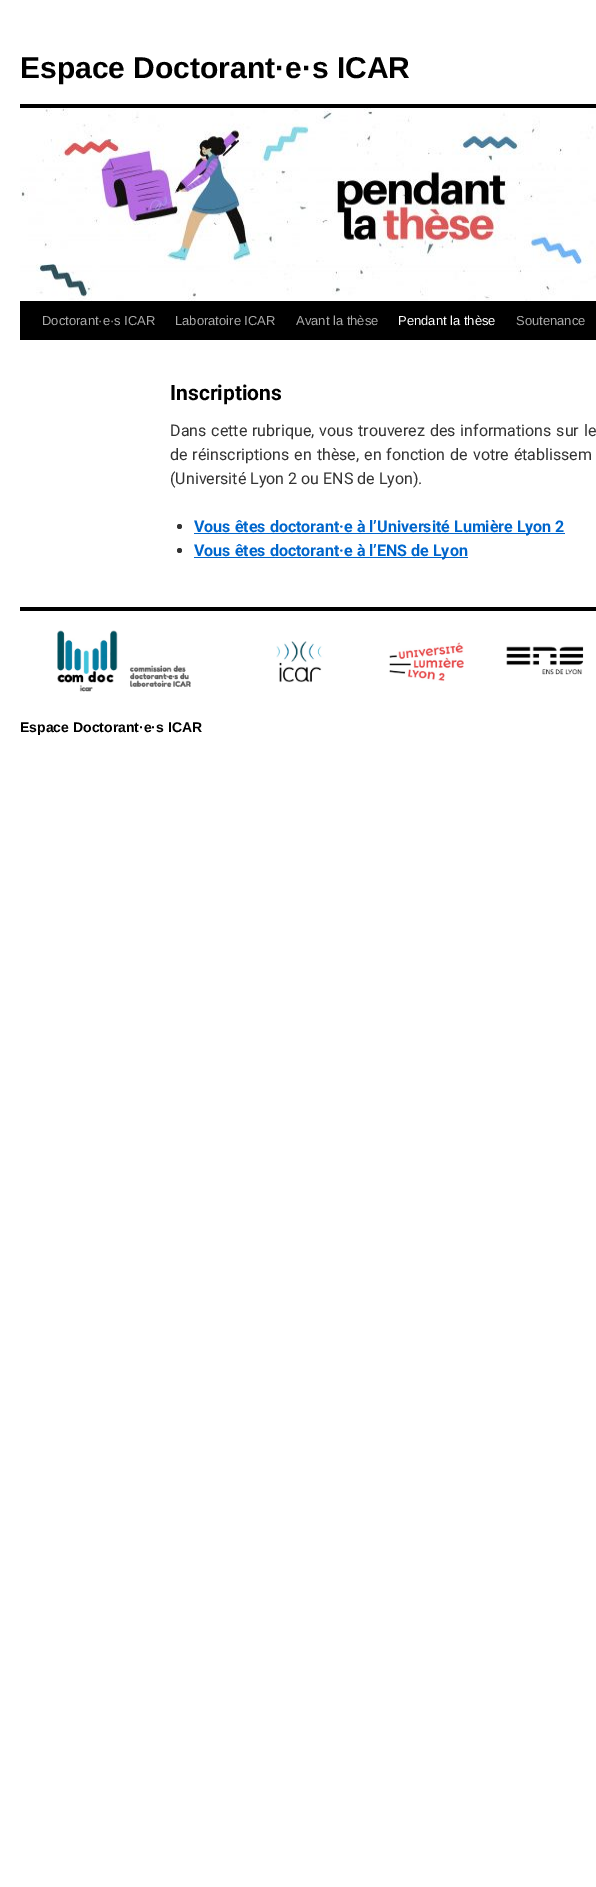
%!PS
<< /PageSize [596 1887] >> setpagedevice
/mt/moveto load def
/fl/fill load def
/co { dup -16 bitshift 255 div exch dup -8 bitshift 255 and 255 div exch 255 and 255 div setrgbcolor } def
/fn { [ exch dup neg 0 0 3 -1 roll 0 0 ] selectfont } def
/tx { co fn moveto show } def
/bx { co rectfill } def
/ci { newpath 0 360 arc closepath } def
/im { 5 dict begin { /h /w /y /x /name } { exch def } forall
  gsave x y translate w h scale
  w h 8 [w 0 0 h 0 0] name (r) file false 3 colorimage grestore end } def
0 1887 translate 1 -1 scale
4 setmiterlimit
0 0 596 1887 16#FFFFFF bx
20 104 576 4 16#000000 bx
20 301 576 39 16#000000 bx
(media/1.raw) 20 108 576 193 im
16#333333 co
179.5 526.5 2.5 ci fl
194 533 371 1 16#0066CC bx
16#333333 co
179.5 550.5 2.5 ci fl
194 557 274 1 16#0066CC bx
20 607 576 4 16#000000 bx
(media/2.raw) 57 630 134 62 im
(media/3.raw) 276 641 188 42 im
(media/4.raw) 506 646 78 29 im
(Espace Doctorant·e·s ICAR) 20 78 /LiberationSans-Bold 30 16#000000 tx
(Doctorant·e·s ICAR) 42 325 /LiberationSans-Regular 13 16#AAAAAA tx
(Laboratoire ICAR) 175 325 /LiberationSans-Regular 13 16#AAAAAA tx
(Avant la thèse) 296 325 /LiberationSans-Regular 13 16#AAAAAA tx
(Pendant la thèse) 398 325 /LiberationSans-Regular 13 16#FFFFFF tx
(Soutenance) 516 325 /LiberationSans-Regular 13 16#AAAAAA tx
(Inscriptions) 170 400 /Roboto-Bold 21 16#000000 tx
/Roboto-Regular 16 fn
16#333333 co
170 436 mt 1 0 32 (Dans cette rubrique, vous trouverez des informations sur le) widthshow
170 460 mt 1 0 32 (de réinscriptions en thèse, en fonction de votre établissem) widthshow
(\(Université Lyon 2 ou ENS de Lyon\).) 170 484 /Roboto-Regular 16 16#333333 tx
(Vous êtes doctorant·e à l’Université Lumière Lyon 2) 194 532 /Roboto-Bold 16 16#0066CC tx
(Vous êtes doctorant·e à l’ENS de Lyon) 194 556 /Roboto-Bold 16 16#0066CC tx
(Espace Doctorant·e·s ICAR) 20 732 /LiberationSans-Bold 14 16#000000 tx
showpage
